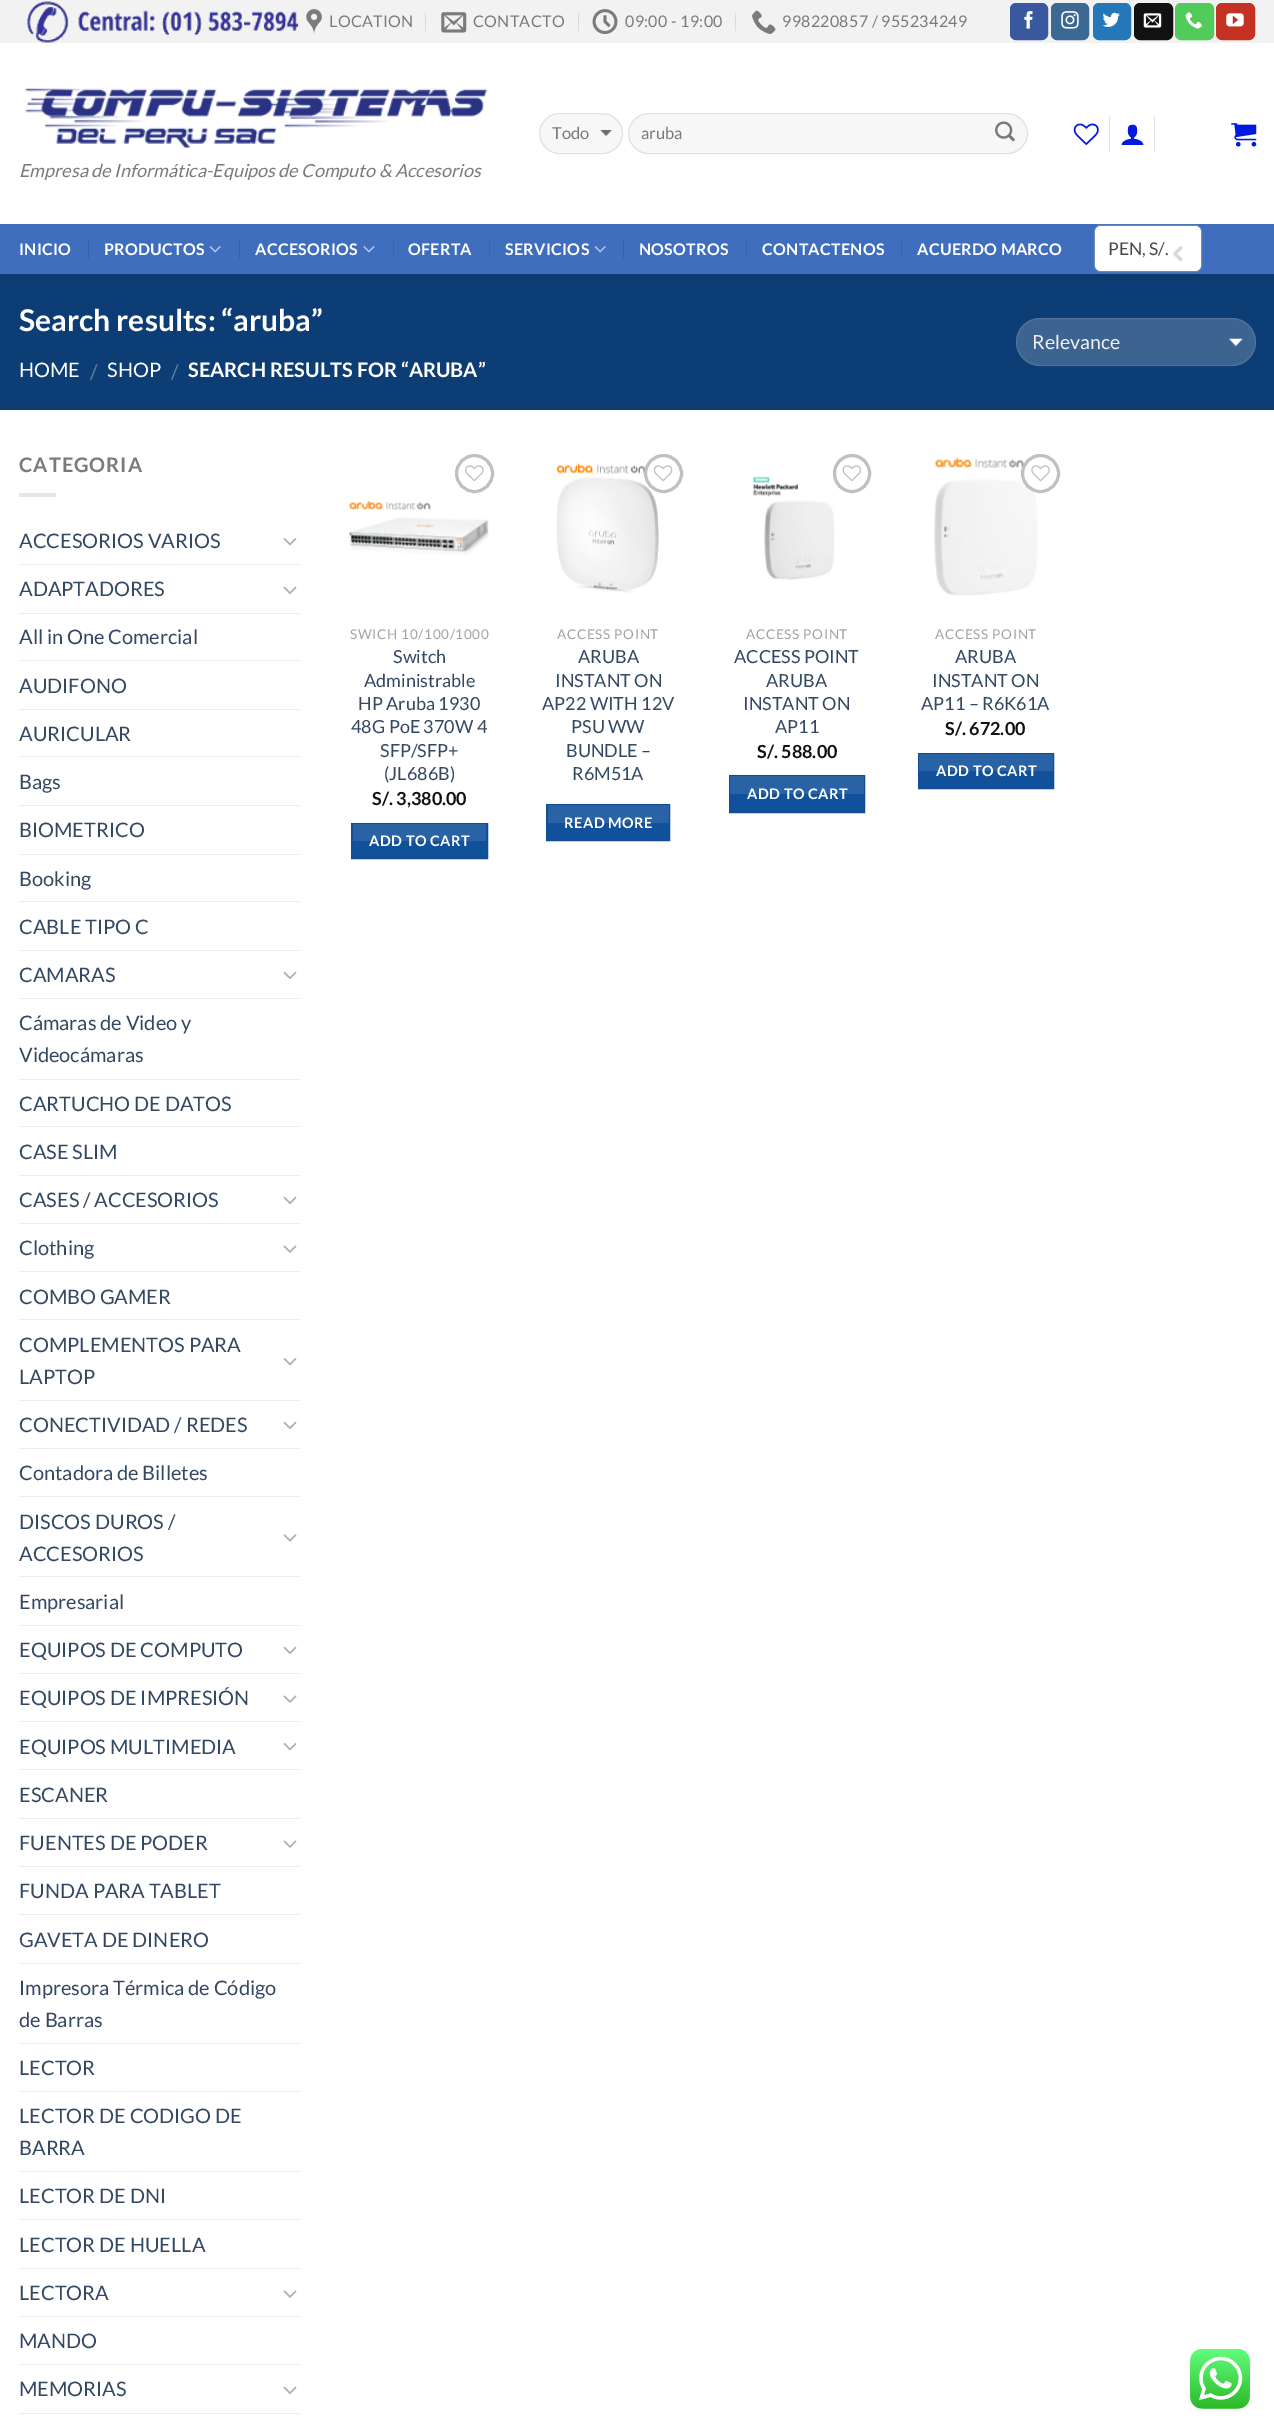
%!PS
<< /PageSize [1274 2433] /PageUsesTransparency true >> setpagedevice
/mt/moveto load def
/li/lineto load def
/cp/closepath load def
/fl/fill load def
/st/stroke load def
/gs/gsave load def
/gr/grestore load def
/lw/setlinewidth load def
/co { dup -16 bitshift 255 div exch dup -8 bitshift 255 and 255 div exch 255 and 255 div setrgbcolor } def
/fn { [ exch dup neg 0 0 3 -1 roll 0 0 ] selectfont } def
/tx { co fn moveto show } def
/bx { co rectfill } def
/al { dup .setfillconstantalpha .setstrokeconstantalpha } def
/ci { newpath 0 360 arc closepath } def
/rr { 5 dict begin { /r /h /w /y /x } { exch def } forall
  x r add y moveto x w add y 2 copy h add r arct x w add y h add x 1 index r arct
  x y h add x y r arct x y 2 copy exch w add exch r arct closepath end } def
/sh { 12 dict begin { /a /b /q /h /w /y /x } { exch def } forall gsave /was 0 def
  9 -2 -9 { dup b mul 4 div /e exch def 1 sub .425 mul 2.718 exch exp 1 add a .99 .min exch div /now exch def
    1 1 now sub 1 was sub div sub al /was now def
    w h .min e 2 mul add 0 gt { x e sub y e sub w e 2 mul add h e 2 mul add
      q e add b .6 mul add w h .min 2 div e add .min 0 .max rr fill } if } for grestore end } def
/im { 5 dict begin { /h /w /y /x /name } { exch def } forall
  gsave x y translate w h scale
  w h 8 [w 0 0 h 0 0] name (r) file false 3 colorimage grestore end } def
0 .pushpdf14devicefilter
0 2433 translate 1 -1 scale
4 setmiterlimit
0 0 1274 2433 16#FFFFFF bx
0 274 1274 136 16#0D3D75 bx
16#000000 co
1 1 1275 274 0 6 .15 sh
0 43 1274 181 16#FFFFFF bx
0 0 1274 43 16#F2F2F2 bx
(media/1.raw) 26 1 273 42 im
(media/2.raw) 306 9 16 25 im
425 13 1 18 16#DADADA bx
(media/3.raw) 441 12 26 21 im
578 13 1 18 16#DADADA bx
(media/4.raw) 592 9 26 25 im
735 13 1 18 16#DADADA bx
(media/5.raw) 752 10 24 24 im
16#3A589D co
1010.5 3.5 37 36 5.5 rr gs fl gr
st
(media/6.raw) 1024 11 9 18 im
16#3B6994 co
1051.5 3.5 37 36 5.5 rr gs fl gr
st
(media/7.raw) 1061 11 18 18 im
16#2478BA co
1093.5 3.5 37 36 5.5 rr gs fl gr
st
(media/8.raw) 1102 12 18 15 im
16#111111 co
1134.5 3.5 38 36 5.5 rr gs fl gr
st
(media/9.raw) 1143 13 19 15 im
16#51CB5A co
1175.5 3.5 38 36 5.5 rr gs fl gr
st
(media/10.raw) 1185 12 17 17 im
16#C33223 co
1216.5 3.5 38 36 5.5 rr gs fl gr
st
(media/11.raw) 1226 13 18 14 im
16#F7F7F7 co
539 113 84 41 20.5 rr fl
(media/12.raw) 600 130 12 7 im
0.09 al
16#000000 co
539.5 113.5 83 40 20 rr st
1 al
16#F7F7F7 co
628 113 400 41 20.5 rr fl
0.09 al
16#000000 co
628.5 113.5 399 40 20 rr st
1 al
(media/13.raw) 995 121 20 21 im
(media/14.raw) 1073 123 26 22 im
1109 115 1 38 16#E6E6E6 bx
(media/15.raw) 1121 124 23 21 im
1154 115 1 38 16#E6E6E6 bx
(media/16.raw) 1231 123 26 24 im
(media/17.raw) 25 88 463 60 im
0 224 1274 50 16#3F6EBF bx
16#CCCCCC co
1095 226 106 45 6 1 1 sh
0.1 al
19 224 1237 1 16#7A7A7A bx
1 al
88 240 1 19 16#3963AC bx
(media/18.raw) 209 246 12 7 im
239 240 1 19 16#3963AC bx
(media/19.raw) 363 246 12 7 im
393 240 1 19 16#3963AC bx
489 240 1 19 16#3963AC bx
(media/18.raw) 594 246 12 7 im
623 240 1 19 16#3963AC bx
746 240 1 19 16#3963AC bx
901 240 1 19 16#3963AC bx
16#FFFFFF co
1095 226 106 45 6 rr fl
(media/20.raw) 1173 246 10 16 im
16#3D6491 co
1016 318 240 48 24 rr fl
(media/21.raw) 1228 338 15 9 im
0.09 al
16#FFFFFF co
1016.5 318.5 239 47 23.5 rr st
1 al
19 493 37 4 16#E6E6E6 bx
(media/22.raw) 283 538 14 8 im
19 564 281 1 16#ECECEC bx
(media/23.raw) 283 586 14 9 im
19 613 281 1 16#ECECEC bx
19 660 281 1 16#ECECEC bx
19 709 281 1 16#ECECEC bx
19 756 281 1 16#ECECEC bx
19 805 281 1 16#ECECEC bx
19 854 281 1 16#ECECEC bx
19 901 281 1 16#ECECEC bx
19 950 281 1 16#ECECEC bx
(media/23.raw) 283 971 14 9 im
19 998 281 1 16#ECECEC bx
19 1079 281 1 16#ECECEC bx
19 1126 281 1 16#ECECEC bx
19 1175 281 1 16#ECECEC bx
(media/23.raw) 283 1196 14 9 im
19 1223 281 1 16#ECECEC bx
(media/24.raw) 283 1245 14 8 im
19 1271 281 1 16#ECECEC bx
19 1319 281 1 16#ECECEC bx
(media/22.raw) 283 1358 14 8 im
19 1400 281 1 16#ECECEC bx
(media/23.raw) 283 1421 14 9 im
19 1448 281 1 16#ECECEC bx
19 1496 281 1 16#ECECEC bx
(media/25.raw) 283 1534 14 8 im
19 1576 281 1 16#ECECEC bx
19 1625 281 1 16#ECECEC bx
(media/23.raw) 283 1646 14 9 im
19 1673 281 1 16#ECECEC bx
(media/24.raw) 283 1695 14 8 im
19 1721 281 1 16#ECECEC bx
(media/22.raw) 283 1743 14 8 im
19 1769 281 1 16#ECECEC bx
19 1818 281 1 16#ECECEC bx
(media/24.raw) 283 1840 14 8 im
19 1866 281 1 16#ECECEC bx
19 1914 281 1 16#ECECEC bx
19 1963 281 1 16#ECECEC bx
19 2043 281 1 16#ECECEC bx
19 2091 281 1 16#ECECEC bx
19 2171 281 1 16#ECECEC bx
19 2219 281 1 16#ECECEC bx
19 2268 281 1 16#ECECEC bx
(media/24.raw) 283 2290 14 8 im
19 2316 281 1 16#ECECEC bx
19 2364 281 1 16#ECECEC bx
(media/23.raw) 283 2386 14 9 im
19 2413 281 1 16#ECECEC bx
16#C0C0C0 co
3 lw
474.5 473.5 18 ci st
(media/26.raw) 465 465 19 17 im
(media/27.raw) 349 500 140 55 im
16#11519B co
351.5 823.5 mt 487.5 823.5 li 487.5 858.5 li 351.5 858.5 li cp gs fl gr
16#104D93 co
1 lw
st
0.1 al
353 824 133 17 16#FFFFFF bx
1 al
(media/28.raw) 556 462 103 131 im
16#C0C0C0 co
3 lw
663.5 473.5 18 ci st
(media/29.raw) 653 465 20 17 im
16#11519B co
546.5 804.5 mt 669.5 804.5 li 669.5 840.5 li 546.5 840.5 li cp gs fl gr
16#104D93 co
1 lw
st
0.1 al
548 805 121 18 16#FFFFFF bx
1 al
(media/30.raw) 752 476 83 104 im
16#C0C0C0 co
3 lw
834.5 455.5 35 36 17.5 rr st
(media/31.raw) 842 465 20 17 im
16#11519B co
729.5 775.5 mt 864.5 775.5 li 864.5 812.5 li 729.5 812.5 li cp gs fl gr
16#104D93 co
1 lw
st
0.1 al
730 776 134 18 16#FFFFFF bx
1 al
(media/32.raw) 934 457 104 139 im
16#C0C0C0 co
3 lw
1040.5 473.5 18 ci st
(media/33.raw) 1031 465 19 17 im
16#11519B co
918.5 753.5 mt 1053.5 753.5 li 1053.5 788.5 li 918.5 788.5 li cp gs fl gr
16#104D93 co
1 lw
st
0.1 al
919 754 134 17 16#FFFFFF bx
1 al
(media/34.raw) 1190 2349 60 60 im
/Lato-Regular 16 fn
16#7A7A7A co
329 27 mt .3 0 (LOCATION) ashow
473 27 mt .3 0 (CONTACTO) ashow
625 27 mt .3 0 (09:00 - 19:00) ashow
782 27 mt .3 0 (998220857 / 955234249) ashow
(Todo) 552 139 /Lato-Regular 16.5 16#7A7A7A tx
(aruba) 641 139 /Lato-Regular 16.5 16#7A7A7A tx
(Empresa de Informática-Equipos de Computo & Accesorios) 19 177 /Lato-Italic 18 16#7A7A7A tx
/Lato-Bold 16 fn
16#FFFFFF co
19 255 mt .3 0 (INICIO) ashow
104 255 mt .3 0 (PRODUCTOS) ashow
255 255 mt .3 0 (ACCESORIOS) ashow
408 255 mt .3 0 (OFERTA) ashow
505 255 mt .3 0 (SERVICIOS) ashow
639 255 mt .3 0 (NOSOTROS) ashow
762 255 mt .3 0 (CONTACTENOS) ashow
917 255 mt .3 0 (ACUERDO MARCO) ashow
(PEN, S/.) 1108 255 /Lato-Regular 17.5 16#474747 tx
(Search results: “aruba”) 19 331 /Lato-Bold 30 16#FFFFFF tx
(HOME) 19 377 /Lato-Regular 20 16#FFFFFF tx
(/) 90 379 /Lato-Regular 20 16#6281A5 tx
(SHOP) 107 377 /Lato-Regular 20 16#FFFFFF tx
(/) 171 379 /Lato-Regular 20 16#6281A5 tx
(SEARCH RESULTS FOR “ARUBA”) 188 377 /Lato-Bold 20 16#FFFFFF tx
(Relevance) 1032 349 /Lato-Regular 19.5 16#F1F1F1 tx
/Lato-Bold 20 fn
16#7A7A7A co
19 472 mt 1 0 (CATEGORIA) ashow
(ACCESORIOS VARIOS) 19 548 /Lato-Regular 20 16#334862 tx
(ADAPTADORES) 19 596 /Lato-Regular 20 16#334862 tx
(All in One Comercial) 19 644 /Lato-Regular 20 16#334862 tx
(AUDIFONO) 19 693 /Lato-Regular 20 16#334862 tx
(AURICULAR) 19 741 /Lato-Regular 20 16#334862 tx
(Bags) 19 789 /Lato-Regular 20 16#334862 tx
(BIOMETRICO) 19 837 /Lato-Regular 20 16#334862 tx
(Booking) 19 886 /Lato-Regular 20 16#334862 tx
(CABLE TIPO C) 19 934 /Lato-Regular 20 16#334862 tx
(CAMARAS) 19 982 /Lato-Regular 20 16#334862 tx
(Cámaras de Video y) 19 1030 /Lato-Regular 20 16#334862 tx
(Videocámaras) 19 1062 /Lato-Regular 20 16#334862 tx
(CARTUCHO DE DATOS) 19 1111 /Lato-Regular 20 16#334862 tx
(CASE SLIM) 19 1159 /Lato-Regular 20 16#334862 tx
(CASES / ACCESORIOS) 19 1207 /Lato-Regular 20 16#334862 tx
(Clothing) 19 1255 /Lato-Regular 20 16#334862 tx
(COMBO GAMER) 19 1304 /Lato-Regular 20 16#334862 tx
(COMPLEMENTOS PARA) 19 1352 /Lato-Regular 20 16#334862 tx
(LAPTOP) 19 1384 /Lato-Regular 20 16#334862 tx
(CONECTIVIDAD / REDES) 19 1432 /Lato-Regular 20 16#334862 tx
(Contadora de Billetes) 19 1480 /Lato-Regular 20 16#334862 tx
(DISCOS DUROS /) 19 1529 /Lato-Regular 20 16#334862 tx
(ACCESORIOS) 19 1561 /Lato-Regular 20 16#334862 tx
(Empresarial) 19 1609 /Lato-Regular 20 16#334862 tx
(EQUIPOS DE COMPUTO) 19 1657 /Lato-Regular 20 16#334862 tx
(EQUIPOS DE IMPRESIÓN) 19 1705 /Lato-Regular 20 16#334862 tx
(EQUIPOS MULTIMEDIA) 19 1754 /Lato-Regular 20 16#334862 tx
(ESCANER) 19 1802 /Lato-Regular 20 16#334862 tx
(FUENTES DE PODER) 19 1850 /Lato-Regular 20 16#334862 tx
(FUNDA PARA TABLET) 19 1898 /Lato-Regular 20 16#334862 tx
(GAVETA DE DINERO) 19 1947 /Lato-Regular 20 16#334862 tx
(Impresora Térmica de Código) 19 1995 /Lato-Regular 20 16#334862 tx
(de Barras) 19 2027 /Lato-Regular 20 16#334862 tx
(LECTOR) 19 2075 /Lato-Regular 20 16#334862 tx
(LECTOR DE CODIGO DE) 19 2123 /Lato-Regular 20 16#334862 tx
(BARRA) 19 2155 /Lato-Regular 20 16#334862 tx
(LECTOR DE DNI) 19 2203 /Lato-Regular 20 16#334862 tx
(LECTOR DE HUELLA) 19 2252 /Lato-Regular 20 16#334862 tx
(LECTORA) 19 2300 /Lato-Regular 20 16#334862 tx
(MANDO) 19 2348 /Lato-Regular 20 16#334862 tx
(MEMORIAS) 19 2396 /Lato-Regular 20 16#334862 tx
/Lato-Regular 13.5 fn
16#A2A2A2 co
350 639 mt .7 0 (SWICH 10/100/1000) ashow
(Switch) 393 663 /Lato-Regular 18 16#334862 tx
(Administrable) 364 687 /Lato-Regular 18 16#334862 tx
(HP Aruba 1930) 358 710 /Lato-Regular 18 16#334862 tx
(48G PoE 370W 4) 351 733 /Lato-Regular 18 16#334862 tx
(SFP/SFP+) 380 757 /Lato-Regular 18 16#334862 tx
(\(JL686B\)) 384 780 /Lato-Regular 18 16#334862 tx
(S/. 3,380.00) 372 805 /Lato-Bold 18 16#111111 tx
/Lato-Bold 14.5 fn
16#FFFFFF co
369 846 mt .5 0 (ADD TO CART) ashow
/Lato-Regular 13.5 fn
16#A2A2A2 co
557 639 mt .7 0 (ACCESS POINT) ashow
(ARUBA) 578 663 /Lato-Regular 18 16#334862 tx
(INSTANT ON) 555 687 /Lato-Regular 18 16#334862 tx
(AP22 WITH 12V) 542 710 /Lato-Regular 18 16#334862 tx
(PSU WW) 571 733 /Lato-Regular 18 16#334862 tx
(BUNDLE –) 566 757 /Lato-Regular 18 16#334862 tx
(R6M51A) 572 780 /Lato-Regular 18 16#334862 tx
/Lato-Bold 14.5 fn
16#FFFFFF co
564 828 mt .5 0 (READ MORE) ashow
/Lato-Regular 13.5 fn
16#A2A2A2 co
746 639 mt .7 0 (ACCESS POINT) ashow
(ACCESS POINT) 734 663 /Lato-Regular 18 16#334862 tx
(ARUBA) 766 687 /Lato-Regular 18 16#334862 tx
(INSTANT ON) 743 710 /Lato-Regular 18 16#334862 tx
(AP11) 775 733 /Lato-Regular 18 16#334862 tx
(S/. 588.00) 757 758 /Lato-Bold 18 16#111111 tx
/Lato-Bold 14.5 fn
16#FFFFFF co
747 799 mt .5 0 (ADD TO CART) ashow
/Lato-Regular 13.5 fn
16#A2A2A2 co
935 639 mt .7 0 (ACCESS POINT) ashow
(ARUBA) 955 663 /Lato-Regular 18 16#334862 tx
(INSTANT ON) 932 687 /Lato-Regular 18 16#334862 tx
(AP11 – R6K61A) 921 710 /Lato-Regular 18 16#334862 tx
(S/. 672.00) 945 735 /Lato-Bold 18 16#111111 tx
/Lato-Bold 14.5 fn
16#FFFFFF co
936 776 mt .5 0 (ADD TO CART) ashow
.poppdf14devicefilter showpage
